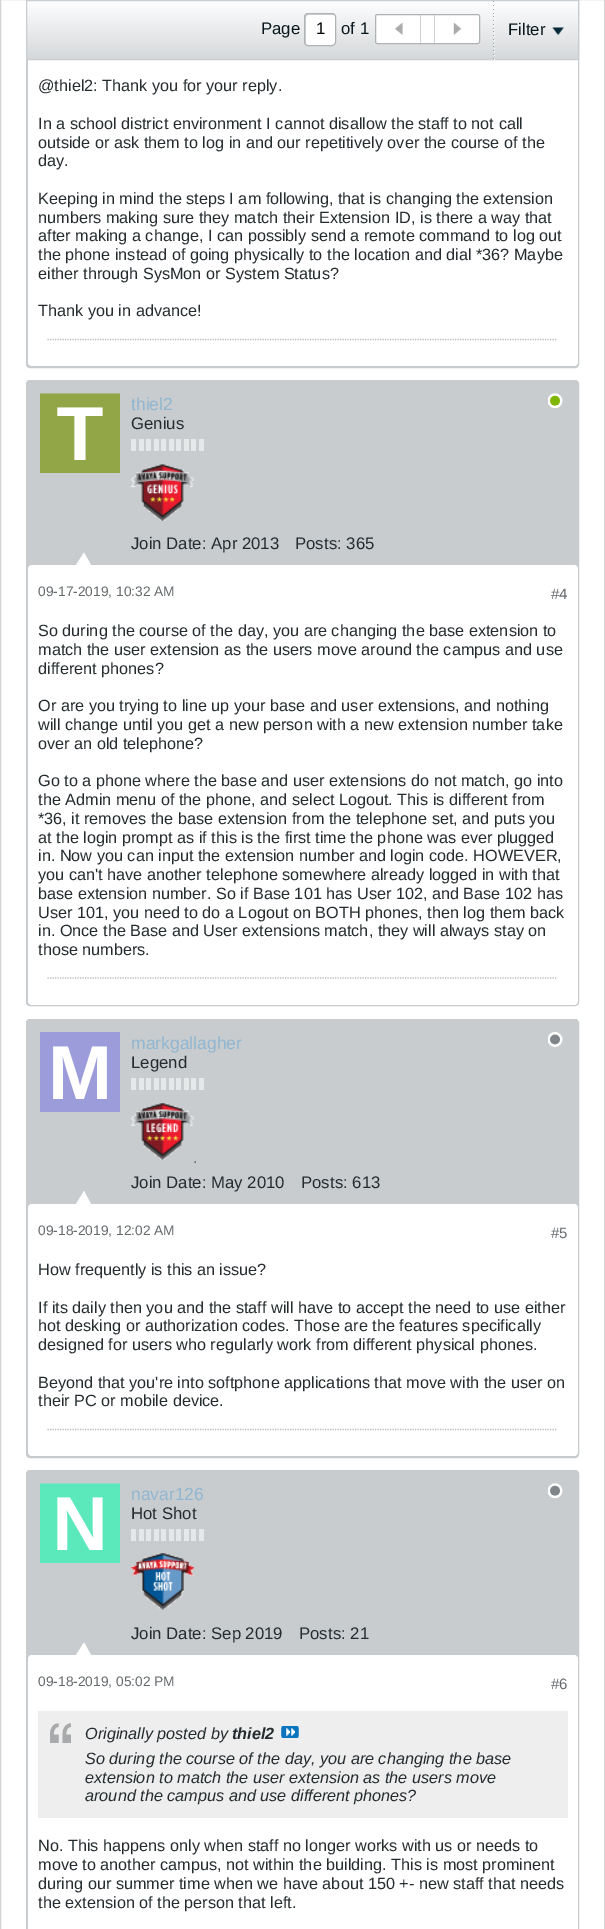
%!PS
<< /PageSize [605 1929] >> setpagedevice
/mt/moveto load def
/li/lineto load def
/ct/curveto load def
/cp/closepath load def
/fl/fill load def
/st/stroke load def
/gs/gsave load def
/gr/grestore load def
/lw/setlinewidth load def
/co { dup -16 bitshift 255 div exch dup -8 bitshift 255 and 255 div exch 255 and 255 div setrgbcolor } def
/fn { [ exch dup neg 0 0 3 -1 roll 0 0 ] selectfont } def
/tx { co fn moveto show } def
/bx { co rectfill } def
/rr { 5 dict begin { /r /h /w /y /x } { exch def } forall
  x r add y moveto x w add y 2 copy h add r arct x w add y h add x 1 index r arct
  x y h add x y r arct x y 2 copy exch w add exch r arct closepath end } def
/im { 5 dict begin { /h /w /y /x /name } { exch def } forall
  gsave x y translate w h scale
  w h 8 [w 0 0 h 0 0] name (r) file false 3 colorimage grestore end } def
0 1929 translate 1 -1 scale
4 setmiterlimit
0 0 605 1929 16#FFFFFF bx
16#D3D3D3 co
.5 -.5 604 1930 rectstroke
16#C8CCCE co
26.5 -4.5 552 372 3.5 rr gs fl gr
st
16#FFFFFF co
28 20 550 346 4 rr fl
gs 27 1 mt 578 1 li 578 59 li 27 59 li cp clip newpath
<< /ShadingType 2 /ColorSpace /DeviceRGB /Coords [303 1.2 303 59] /Extend [true true] /Function << /FunctionType 2 /Domain [0 1] /C0 [.996 .996 1] /C1 [.835 .847 .855] /N 1 >> >> shfill gr
16#C9CED2 co
26.5 .5 552 59 rectstroke
16#FFFFFF co
304 13 32 33 4 rr fl
16#D5D5D5 co
309 15 mt 334.5 15 li 334 14.5 333.5 14 332.5 14 ct 307.5 14 li 306 14 305 15 305 16.5 ct 305 42.5 li 305 43.5 305.5 44 306 44.5 ct 306 22.5 li 306 19.5 305 15 309 15 ct cp fl
16#AEB3B6 co
304.5 13.5 31 32 3.5 rr st
16#FFFFFF co
375.5 14.5 104 29 2 rr gs fl gr
16#AEB3B6 co
st
420 15 1 28 16#CDD1D4 bx
(media/1.raw) 394 23 9 12 im
434 15 1 28 16#CDD1D4 bx
(media/2.raw) 453 23 9 12 im
(media/3.raw) 493 1 1 58 im
(media/4.raw) 494 6 1 54 im
(media/5.raw) 552 27 12 8 im
16#B7BCBE co
1.2 lw
[1.25 1.25] 0 setdash
47.5 339.5 mt 557.5 339.5 li st
16#C8CCCE co
26.5 380.5 552 625 3.5 rr gs fl gr
1 lw
[] 0 setdash
st
(media/6.raw) 40 393 80 80 im
(media/7.raw) 548 393 15 15 im
131 439 5 12 16#E5E8E9 bx
139 439 5 12 16#E5E8E9 bx
146 439 5 12 16#E5E8E9 bx
154 439 5 12 16#E5E8E9 bx
161 439 5 12 16#E5E8E9 bx
169 439 5 12 16#E5E8E9 bx
176 439 5 12 16#E5E8E9 bx
184 439 5 12 16#E5E8E9 bx
191 439 5 12 16#E5E8E9 bx
199 439 5 12 16#E5E8E9 bx
(media/8.raw) 131 464 63 57 im
16#FFFFFF co
28 565 550 440 4 rr fl
91 565 mt 76 565 li 84 552.5 li cp fl
16#B7BCBE co
1.2 lw
[1.25 1.25] 0 setdash
47.5 978 mt 557.5 978 li st
16#C8CCCE co
26.5 1019.5 552 438 3.5 rr gs fl gr
1 lw
[] 0 setdash
st
(media/9.raw) 40 1032 80 80 im
(media/10.raw) 548 1032 15 15 im
131 1078 5 12 16#E5E8E9 bx
139 1078 5 12 16#E5E8E9 bx
146 1078 5 12 16#E5E8E9 bx
154 1078 5 12 16#E5E8E9 bx
161 1078 5 12 16#E5E8E9 bx
169 1078 5 12 16#E5E8E9 bx
176 1078 5 12 16#E5E8E9 bx
184 1078 5 12 16#E5E8E9 bx
191 1078 5 12 16#E5E8E9 bx
199 1078 5 12 16#E5E8E9 bx
(media/11.raw) 131 1103 63 57 im
16#FFFFFF co
28 1204 550 252 4 rr fl
91 1204 mt 76 1204 li 84 1191 li cp fl
16#B7BCBE co
1.2 lw
[1.25 1.25] 0 setdash
47.5 1429.5 mt 557.5 1429.5 li st
16#C8CCCE co
26.5 1470.5 552 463 3.5 rr gs fl gr
1 lw
[] 0 setdash
st
(media/12.raw) 40 1483 80 80 im
(media/13.raw) 548 1483 15 15 im
131 1529 5 12 16#E5E8E9 bx
139 1529 5 12 16#E5E8E9 bx
146 1529 5 12 16#E5E8E9 bx
154 1529 5 12 16#E5E8E9 bx
161 1529 5 12 16#E5E8E9 bx
169 1529 5 12 16#E5E8E9 bx
176 1529 5 12 16#E5E8E9 bx
184 1529 5 12 16#E5E8E9 bx
191 1529 5 12 16#E5E8E9 bx
199 1529 5 12 16#E5E8E9 bx
(media/14.raw) 131 1553 63 57 im
16#FFFFFF co
28 1655 550 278 4 rr fl
91 1655 mt 76 1655 li 84 1642.5 li cp fl
38 1711 530 107 16#EEEEEE bx
(media/15.raw) 50 1723 21 20 im
(media/16.raw) 281 1726 18 12 im
(Page) 261 34 /LiberationSans-Regular 16.75 16#09161B tx
(1) 316 34 /LiberationSans-Regular 16.75 16#000000 tx
(of 1) 341 34 /LiberationSans-Regular 16.75 16#09161B tx
(Filter) 508 35 /LiberationSans-Regular 16.75 16#09161B tx
(@thiel2: Thank you for your reply.) 38 91 /LiberationSans-Regular 16.25 16#252C2F tx
(In a school district environment I cannot disallow the staff to not call) 38 129 /LiberationSans-Regular 16.25 16#252C2F tx
(outside or ask them to log in and our repetitively over the course of the) 38 148 /LiberationSans-Regular 16.25 16#252C2F tx
(day.) 38 166 /LiberationSans-Regular 16.25 16#252C2F tx
(Keeping in mind the steps I am following, that is changing the extension) 38 204 /LiberationSans-Regular 16.25 16#252C2F tx
(numbers making sure they match their Extension ID, is there a way that) 38 223 /LiberationSans-Regular 16.25 16#252C2F tx
(after making a change, I can possibly send a remote command to log out) 38 241 /LiberationSans-Regular 16.25 16#252C2F tx
(the phone instead of going physically to the location and dial *36? Maybe) 38 260 /LiberationSans-Regular 16.25 16#252C2F tx
(either through SysMon or System Status?) 38 279 /LiberationSans-Regular 16.25 16#252C2F tx
(Thank you in advance!) 38 316 /LiberationSans-Regular 16.25 16#252C2F tx
(thiel2) 131 410 /LiberationSans-Regular 17.5 16#90B6D1 tx
(Genius) 131 429 /LiberationSans-Regular 16.75 16#252C2F tx
(Join Date: Apr 2013) 131 549 /LiberationSans-Regular 16.75 16#252C2F tx
(Posts: 365) 295 549 /LiberationSans-Regular 16.75 16#252C2F tx
(09-17-2019, 10:32 AM) 38 596 /LiberationSans-Regular 13.75 16#656A6D tx
(#4) 551 599 /LiberationSans-Regular 15 16#656A6D tx
(So during the course of the day, you are changing the base extension to) 38 636 /LiberationSans-Regular 16.25 16#252C2F tx
(match the user extension as the users move around the campus and use) 38 655 /LiberationSans-Regular 16.25 16#252C2F tx
(different phones?) 38 674 /LiberationSans-Regular 16.25 16#252C2F tx
(Or are you trying to line up your base and user extensions, and nothing) 38 711 /LiberationSans-Regular 16.25 16#252C2F tx
(will change until you get a new person with a new extension number take) 38 730 /LiberationSans-Regular 16.25 16#252C2F tx
(over an old telephone?) 38 749 /LiberationSans-Regular 16.25 16#252C2F tx
(Go to a phone where the base and user extensions do not match, go into) 38 786 /LiberationSans-Regular 16.25 16#252C2F tx
(the Admin menu of the phone, and select Logout. This is different from) 38 805 /LiberationSans-Regular 16.25 16#252C2F tx
(*36, it removes the base extension from the telephone set, and puts you) 38 824 /LiberationSans-Regular 16.25 16#252C2F tx
(at the login prompt as if this is the first time the phone was ever plugged) 38 843 /LiberationSans-Regular 16.25 16#252C2F tx
(in. Now you can input the extension number and login code. HOWEVER,) 38 861 /LiberationSans-Regular 16.25 16#252C2F tx
(you can't have another telephone somewhere already logged in with that) 38 880 /LiberationSans-Regular 16.25 16#252C2F tx
(base extension number. So if Base 101 has User 102, and Base 102 has) 38 899 /LiberationSans-Regular 16.25 16#252C2F tx
(User 101, you need to do a Logout on BOTH phones, then log them back) 38 918 /LiberationSans-Regular 16.25 16#252C2F tx
(in. Once the Base and User extensions match, they will always stay on) 38 936 /LiberationSans-Regular 16.25 16#252C2F tx
(those numbers.) 38 955 /LiberationSans-Regular 16.25 16#252C2F tx
(markgallagher) 131 1049 /LiberationSans-Regular 17.5 16#90B6D1 tx
(Legend) 131 1068 /LiberationSans-Regular 16.75 16#252C2F tx
(.) 193 1163 /LiberationSans-Regular 16.75 16#656A6D tx
(Join Date: May 2010) 131 1188 /LiberationSans-Regular 16.75 16#252C2F tx
(Posts: 613) 301 1188 /LiberationSans-Regular 16.75 16#252C2F tx
(09-18-2019, 12:02 AM) 38 1235 /LiberationSans-Regular 13.75 16#656A6D tx
(#5) 551 1238 /LiberationSans-Regular 15 16#656A6D tx
(How frequently is this an issue?) 38 1275 /LiberationSans-Regular 16.25 16#252C2F tx
(If its daily then you and the staff will have to accept the need to use either) 38 1313 /LiberationSans-Regular 16.25 16#252C2F tx
(hot desking or authorization codes. Those are the features specifically) 38 1331 /LiberationSans-Regular 16.25 16#252C2F tx
(designed for users who regularly work from different physical phones.) 38 1350 /LiberationSans-Regular 16.25 16#252C2F tx
(Beyond that you're into softphone applications that move with the user on) 38 1388 /LiberationSans-Regular 16.25 16#252C2F tx
(their PC or mobile device.) 38 1406 /LiberationSans-Regular 16.25 16#252C2F tx
(navar126) 131 1500 /LiberationSans-Regular 17.5 16#90B6D1 tx
(Hot Shot) 131 1519 /LiberationSans-Regular 16.75 16#252C2F tx
(Join Date: Sep 2019) 131 1639 /LiberationSans-Regular 16.75 16#252C2F tx
(Posts: 21) 299 1639 /LiberationSans-Regular 16.75 16#252C2F tx
(09-18-2019, 05:02 PM) 38 1686 /LiberationSans-Regular 13.75 16#656A6D tx
(#6) 551 1689 /LiberationSans-Regular 15 16#656A6D tx
(Originally posted by) 85 1739 /LiberationSans-Italic 16.25 16#252C2F tx
(thiel2) 232 1739 /LiberationSans-BoldItalic 16.25 16#252C2F tx
(So during the course of the day, you are changing the base) 85 1764 /LiberationSans-Italic 16.25 16#252C2F tx
(extension to match the user extension as the users move) 85 1783 /LiberationSans-Italic 16.25 16#252C2F tx
(around the campus and use different phones?) 85 1801 /LiberationSans-Italic 16.25 16#252C2F tx
(No. This happens only when staff no longer works with us or needs to) 38 1851 /LiberationSans-Regular 16.25 16#252C2F tx
(move to another campus, not within the building. This is most prominent) 38 1870 /LiberationSans-Regular 16.25 16#252C2F tx
(during our summer time when we have about 150 +- new staff that needs) 38 1889 /LiberationSans-Regular 16.25 16#252C2F tx
(the extension of the person that left.) 38 1908 /LiberationSans-Regular 16.25 16#252C2F tx
showpage
